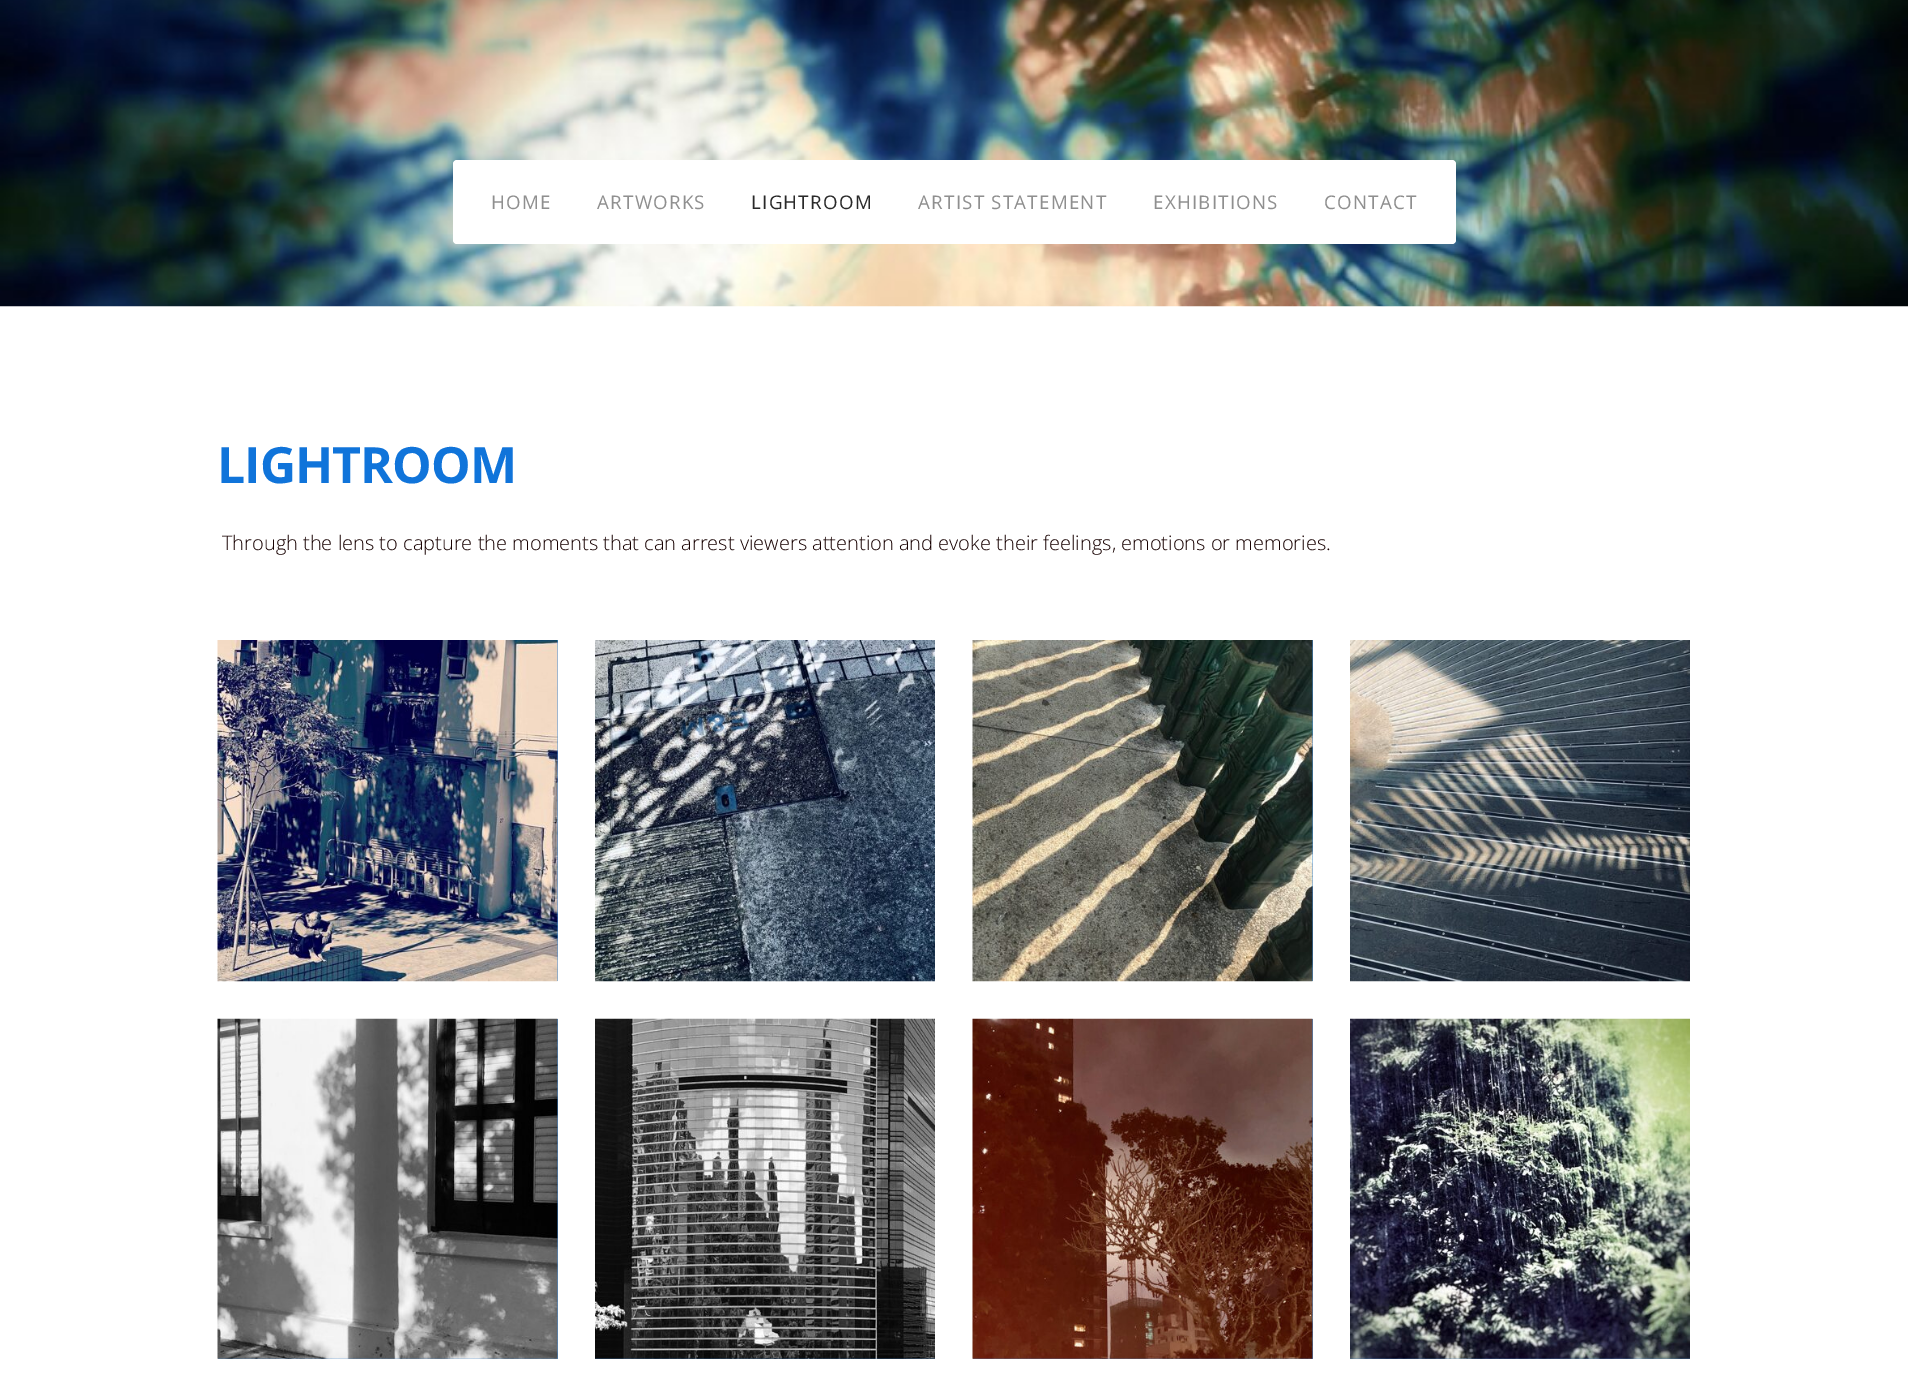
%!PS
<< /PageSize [1908 1373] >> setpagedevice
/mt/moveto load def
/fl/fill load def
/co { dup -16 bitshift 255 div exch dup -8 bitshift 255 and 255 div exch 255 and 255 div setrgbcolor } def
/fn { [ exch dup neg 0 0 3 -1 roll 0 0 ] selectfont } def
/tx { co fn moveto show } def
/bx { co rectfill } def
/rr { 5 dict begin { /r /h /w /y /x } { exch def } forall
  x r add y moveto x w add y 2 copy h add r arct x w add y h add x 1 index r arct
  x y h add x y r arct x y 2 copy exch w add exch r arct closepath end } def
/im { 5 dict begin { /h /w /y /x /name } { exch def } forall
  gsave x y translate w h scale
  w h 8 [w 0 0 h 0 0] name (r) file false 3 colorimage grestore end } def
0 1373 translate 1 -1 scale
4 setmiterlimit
0 0 1908 1373 16#FFFFFF bx
(media/1.raw) 0 0 1908 307 im
453 160 1003 84 4 rr fl
557 640 1 341 16#4C92DA bx
(media/2.raw) 217 640 341 342 im
(media/3.raw) 595 640 340 342 im
1312 640 1 341 16#4C92DA bx
(media/4.raw) 972 640 341 342 im
(media/5.raw) 1350 640 340 342 im
218 1019 340 340 16#4C92DA bx
(media/6.raw) 217 1018 341 341 im
(media/7.raw) 595 1018 340 341 im
973 1019 340 340 16#4C92DA bx
(media/8.raw) 972 1018 341 341 im
(media/9.raw) 1350 1018 340 341 im
/OpenSans-Regular 18.75 fn
16#8F8F8F co
491 209 mt 1.25 0 (HOME) ashow
597 209 mt 1.25 0 (ARTWORKS) ashow
16#292929 co
751 209 mt 1.25 0 (LIGHTROOM) ashow
16#8F8F8F co
918 209 mt 1.25 0 (ARTIST STATEMENT) ashow
1153 209 mt 1.25 0 (EXHIBITIONS) ashow
1324 209 mt 1.25 0 (CONTACT) ashow
/OpenSans-Bold 50 fn
16#1074DA co
217 483 mt -1 0 (LIGHTROOM) ashow
(Through the lens to capture the moments that can arrest viewers attention and evoke their feelings, emotions or memories.) 222 550 /OpenSans-Light 20 16#180202 tx
showpage
